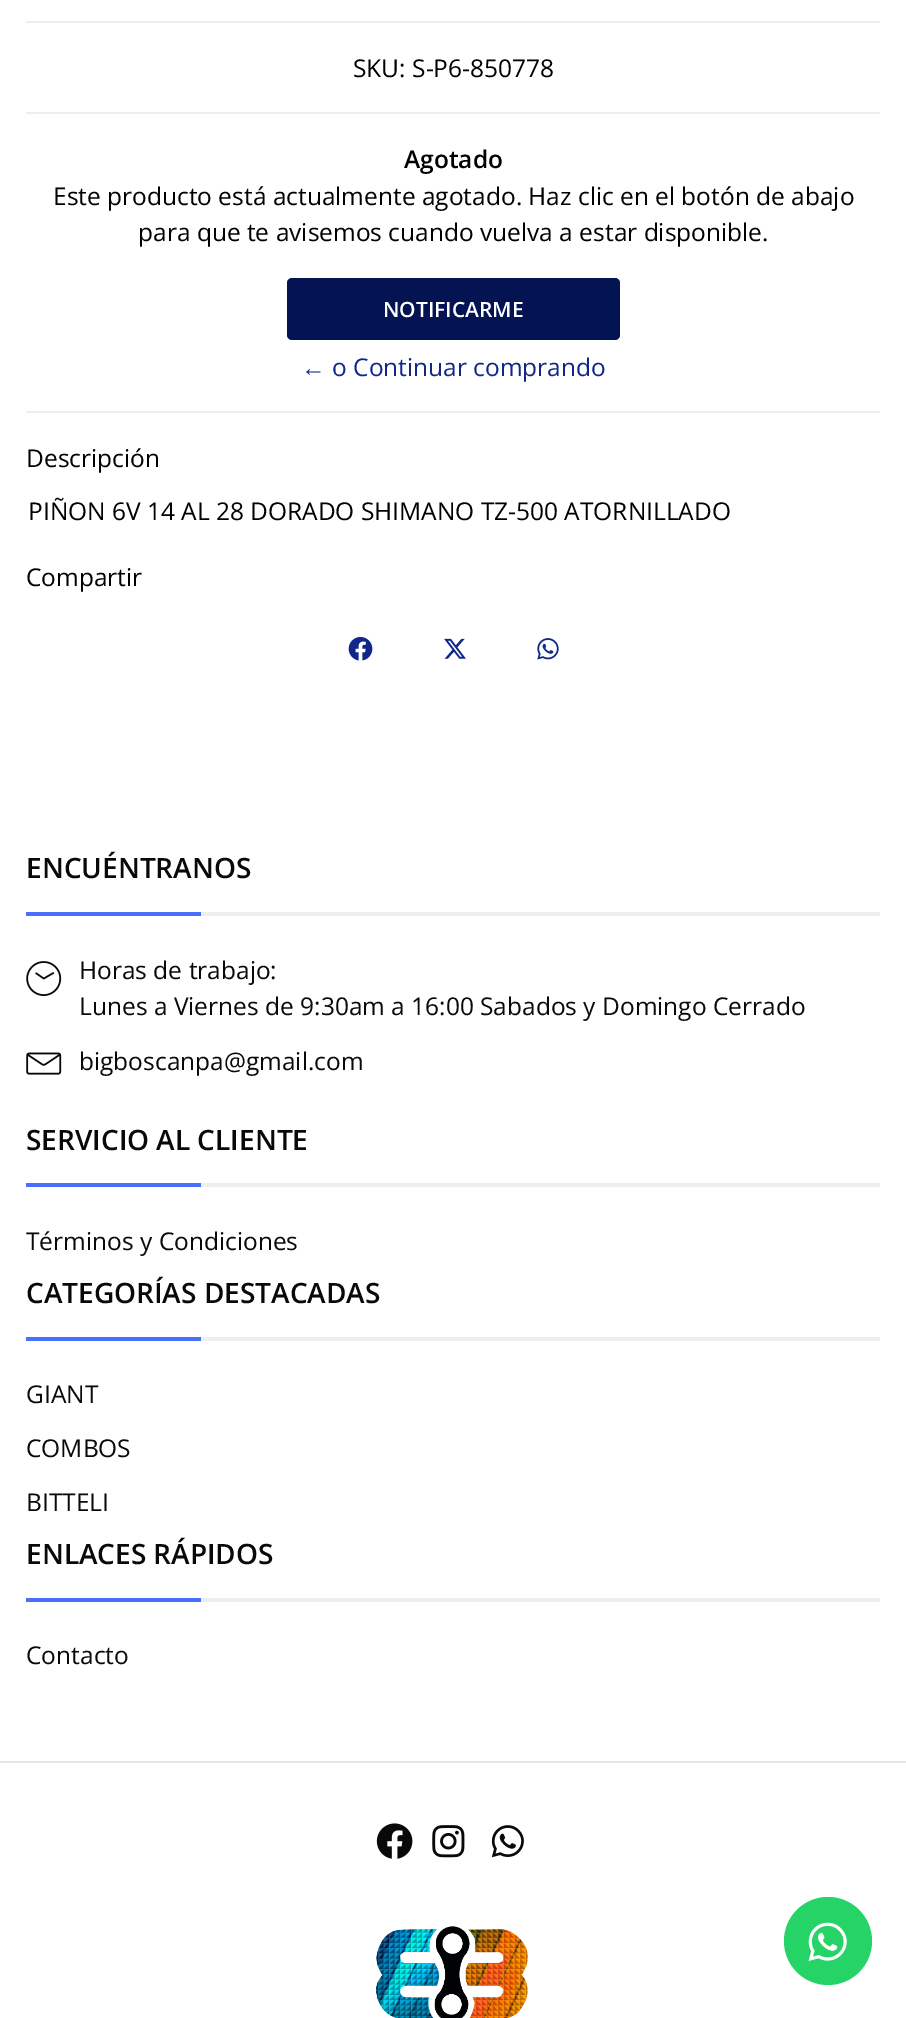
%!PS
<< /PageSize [906 2018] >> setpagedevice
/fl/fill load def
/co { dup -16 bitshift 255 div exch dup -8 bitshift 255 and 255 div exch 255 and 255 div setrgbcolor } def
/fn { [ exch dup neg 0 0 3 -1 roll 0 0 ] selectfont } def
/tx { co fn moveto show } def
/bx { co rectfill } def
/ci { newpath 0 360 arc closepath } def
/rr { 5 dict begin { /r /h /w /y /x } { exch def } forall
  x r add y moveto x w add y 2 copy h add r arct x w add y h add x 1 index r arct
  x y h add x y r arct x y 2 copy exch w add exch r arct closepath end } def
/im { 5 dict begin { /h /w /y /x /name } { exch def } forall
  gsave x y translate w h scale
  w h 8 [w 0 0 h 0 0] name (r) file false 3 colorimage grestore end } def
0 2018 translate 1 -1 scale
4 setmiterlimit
0 0 906 2018 16#FFFFFF bx
26 21 854 2 16#EEEEEE bx
26 112 854 2 16#EEEEEE bx
26 411 854 2 16#EEEEEE bx
16#041352 co
287 278 333 62 5 rr fl
(media/1.raw) 348 636 25 25 im
(media/2.raw) 444 638 22 21 im
(media/3.raw) 537 638 22 22 im
201 912 679 4 16#EEEEEE bx
26 912 175 4 16#4770FC bx
(media/4.raw) 26 961 36 35 im
(media/5.raw) 26 1052 36 23 im
201 1183 679 4 16#EEEEEE bx
26 1183 175 4 16#4770FC bx
201 1337 679 4 16#EEEEEE bx
26 1337 175 4 16#4770FC bx
201 1598 679 4 16#EEEEEE bx
26 1598 175 4 16#4770FC bx
0 1761 906 2 16#E6E6E6 bx
(media/6.raw) 376 1823 37 36 im
(media/7.raw) 432 1825 33 33 im
(media/8.raw) 491 1825 33 33 im
(media/9.raw) 375 1926 153 92 im
16#25D366 co
828 1941 44 ci fl
(media/10.raw) 808 1922 39 39 im
(SKU: S-P6-850778) 353 77 /OpenSans-Regular 24.5 16#000000 tx
(Agotado) 404 168 /OpenSans-SemiBold 24.5 16#000000 tx
(Este producto está actualmente agotado. Haz clic en el botón de abajo) 53 205 /OpenSans-Regular 24.5 16#000000 tx
(para que te avisemos cuando vuelva a estar disponible.) 138 241 /OpenSans-Regular 24.5 16#000000 tx
(NOTIFICARME) 383 317 /OpenSans-SemiBold 21 16#FFFFFF tx
(←) 301 376 /LiberationSerif-Regular 24.5 16#102789 tx
(o Continuar comprando) 332 376 /OpenSans-Regular 24.5 16#102789 tx
(Descripción) 26 467 /OpenSans-Regular 24.5 16#000000 tx
(PIÑON 6V 14 AL 28 DORADO SHIMANO TZ-500 ATORNILLADO) 28 520 /OpenSans-Regular 24.5 16#000000 tx
(Compartir) 26 586 /OpenSans-Regular 24.5 16#000000 tx
(ENCUÉNTRANOS) 26 878 /OpenSans-SemiBold 28 16#090909 tx
(Horas de trabajo:) 79 979 /OpenSans-Regular 24.5 16#090909 tx
(Lunes a Viernes de 9:30am a 16:00 Sabados y Domingo Cerrado) 79 1015 /OpenSans-Regular 24.5 16#090909 tx
(bigboscanpa@gmail.com) 79 1070 /OpenSans-Regular 24.5 16#090909 tx
(SERVICIO AL CLIENTE) 26 1150 /OpenSans-SemiBold 28 16#090909 tx
(Términos y Condiciones) 26 1250 /OpenSans-Regular 24.5 16#090909 tx
(CATEGORÍAS DESTACADAS) 26 1303 /OpenSans-SemiBold 28 16#090909 tx
(GIANT) 26 1403 /OpenSans-Regular 24.5 16#090909 tx
(COMBOS) 26 1457 /OpenSans-Regular 24.5 16#090909 tx
(BITTELI) 26 1511 /OpenSans-Regular 24.5 16#090909 tx
(ENLACES RÁPIDOS) 26 1564 /OpenSans-SemiBold 28 16#090909 tx
(Contacto) 26 1664 /OpenSans-Regular 24.5 16#090909 tx
showpage
